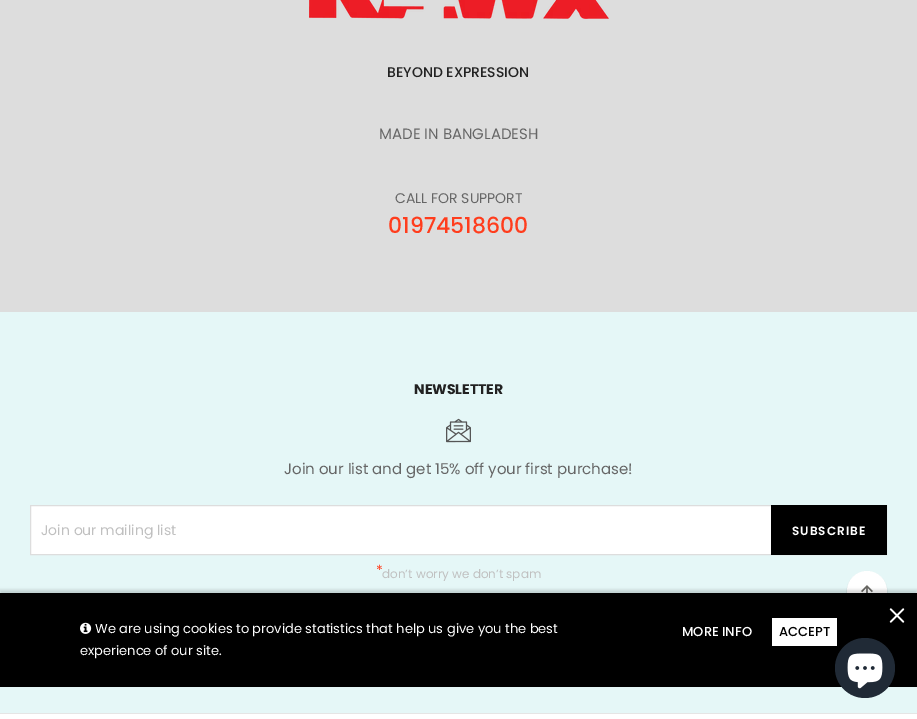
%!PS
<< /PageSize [917 719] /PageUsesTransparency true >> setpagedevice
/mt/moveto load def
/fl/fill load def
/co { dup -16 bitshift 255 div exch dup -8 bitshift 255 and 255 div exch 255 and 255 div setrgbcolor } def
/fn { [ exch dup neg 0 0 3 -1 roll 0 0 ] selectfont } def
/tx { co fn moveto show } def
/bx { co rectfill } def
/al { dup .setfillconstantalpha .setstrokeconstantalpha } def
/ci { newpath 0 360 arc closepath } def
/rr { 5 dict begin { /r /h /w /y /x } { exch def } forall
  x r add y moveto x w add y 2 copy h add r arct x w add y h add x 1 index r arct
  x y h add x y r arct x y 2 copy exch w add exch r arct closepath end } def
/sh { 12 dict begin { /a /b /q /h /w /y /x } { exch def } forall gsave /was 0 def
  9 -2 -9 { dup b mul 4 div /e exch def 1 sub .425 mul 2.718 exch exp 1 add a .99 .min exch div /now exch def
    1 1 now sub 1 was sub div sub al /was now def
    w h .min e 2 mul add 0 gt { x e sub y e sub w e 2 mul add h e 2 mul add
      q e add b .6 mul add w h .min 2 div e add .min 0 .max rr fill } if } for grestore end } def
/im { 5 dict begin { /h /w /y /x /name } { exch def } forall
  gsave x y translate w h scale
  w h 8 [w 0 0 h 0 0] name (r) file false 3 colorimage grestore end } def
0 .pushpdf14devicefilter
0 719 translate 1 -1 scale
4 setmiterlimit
0 0 917 719 16#FFFFFF bx
0 0 917 312 16#DDDDDD bx
(media/1.raw) 309 0 300 19 im
0 312 917 401 16#E5F7F7 bx
(media/2.raw) 446 418 25 25 im
31 506 740 48 16#FFFFFF bx
16#DDDDDD co
30.5 505.5 856 49 rectstroke
771 505 116 50 16#000000 bx
0 713 917 1 16#E5E5E5 bx
16#000000 co
847 572 40 40 20 .5 .2 sh
16#FFFFFF co
867 591 20 ci fl
(media/3.raw) 861 585 12 8 im
16#000000 co
0 590 917 94 0 1.5 .15 sh
0 593 917 94 16#000000 bx
(media/4.raw) 889 608 16 15 im
(media/5.raw) 80 622 12 12 im
772 618 65 28 16#FFFFFF bx
16#202A36 co
865 668 30 ci fl
(media/6.raw) 847 653 36 36 im
(BEYOND EXPRESSION) 387 77 /Poppins-Medium 14 16#222222 tx
(MADE IN BANGLADESH) 379 139 /Poppins-Regular 15 16#666666 tx
(CALL FOR SUPPORT) 395 203 /Poppins-Regular 14 16#666666 tx
(01974518600) 388 233 /Poppins-Medium 22 16#FF3D1D tx
(NEWSLETTER) 414 394 /Poppins-Bold 14 16#222222 tx
(Join our list and get 15% off your first purchase!) 284 474 /Poppins-Regular 15 16#666666 tx
(Join our mailing list) 41 535 /Poppins-Regular 14 16#C0C0C0 tx
/Poppins-SemiBold 12 fn
16#FFFFFF co
792 535 mt 1 0 (SUBSCRIBE) ashow
(*) 376 575 /Poppins-Regular 14 16#FF3D1D tx
(don’t worry we don’t spam) 382 578 /Poppins-Regular 12 16#C0C0C0 tx
(We are using cookies to provide statistics that help us give you the best) 95 633 /Poppins-Regular 13 16#FFFFFF tx
(experience of our site.) 80 655 /Poppins-Regular 13 16#FFFFFF tx
(MORE INFO) 682 636 /Poppins-Medium 13 16#FFFFFF tx
(ACCEPT) 779 636 /Poppins-Medium 13 16#000000 tx
.poppdf14devicefilter showpage
